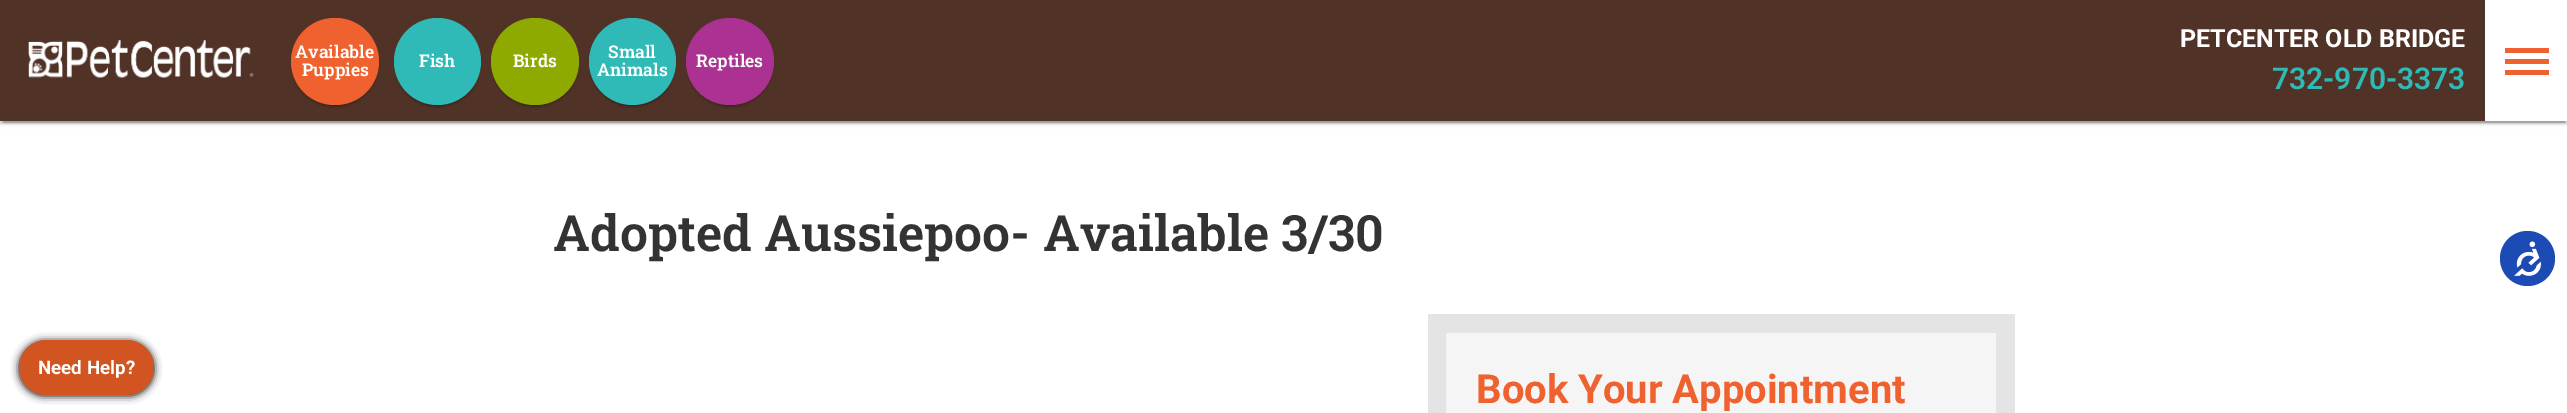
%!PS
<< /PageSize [2567 413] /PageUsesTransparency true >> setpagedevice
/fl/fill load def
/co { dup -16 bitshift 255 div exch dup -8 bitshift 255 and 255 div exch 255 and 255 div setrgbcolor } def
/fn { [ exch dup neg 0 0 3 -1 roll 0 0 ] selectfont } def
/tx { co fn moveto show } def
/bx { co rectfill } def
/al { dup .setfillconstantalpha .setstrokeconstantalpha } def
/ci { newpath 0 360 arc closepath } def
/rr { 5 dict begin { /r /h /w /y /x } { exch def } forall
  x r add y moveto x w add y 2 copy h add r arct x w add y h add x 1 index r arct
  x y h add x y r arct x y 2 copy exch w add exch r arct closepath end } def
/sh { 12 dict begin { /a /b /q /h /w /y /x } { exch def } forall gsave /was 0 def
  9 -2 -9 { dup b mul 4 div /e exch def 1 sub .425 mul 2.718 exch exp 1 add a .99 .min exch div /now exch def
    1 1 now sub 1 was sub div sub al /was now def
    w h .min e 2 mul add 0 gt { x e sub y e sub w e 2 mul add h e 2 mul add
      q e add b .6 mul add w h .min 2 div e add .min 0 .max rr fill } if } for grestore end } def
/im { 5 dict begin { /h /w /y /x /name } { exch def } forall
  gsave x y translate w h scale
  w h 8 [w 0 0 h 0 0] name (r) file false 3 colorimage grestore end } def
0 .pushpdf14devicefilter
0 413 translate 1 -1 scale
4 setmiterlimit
0 0 2567 413 16#FFFFFF bx
16#000000 co
0 1 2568 122 0 3 .12 sh
0 3 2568 121 0 1 .14 sh
3 6 2562 117 0 .5 .2 sh
0 0 2485 121 16#513226 bx
(media/1.raw) 28 39 226 39 im
16#000000 co
291 20 88 88 44 1 .14 sh
294 24 82 82 41 .5 .2 sh
16#EF612E co
291 18 88 87 43.5 rr fl
16#000000 co
394 20 87 88 43.5 1 .14 sh
396 24 83 82 41 .5 .2 sh
16#2FBAB7 co
437.5 61.5 43.5 ci fl
16#000000 co
491 20 88 88 44 1 .14 sh
494 24 82 82 41 .5 .2 sh
16#8EA900 co
491 18 88 87 43.5 rr fl
16#000000 co
589 20 87 88 43.5 1 .14 sh
591 24 83 82 41 .5 .2 sh
16#2FBAB7 co
632.5 61.5 43.5 ci fl
16#000000 co
686 20 88 88 44 1 .14 sh
689 24 82 82 41 .5 .2 sh
16#AB3192 co
686 18 88 87 43.5 rr fl
2485 0 82 121 16#FFFFFF bx
2505 48 44 5 16#EF612E bx
2505 59 44 5 16#EF612E bx
2505 70 44 5 16#EF612E bx
1428 314 587 99 16#E4E4E4 bx
1446 333 550 80 16#F5F5F5 bx
16#1C4BB6 co
2527.5 258.5 27.5 ci fl
(media/2.raw) 2514 241 27 35 im
16#000000 co
19 341 135 55 27.5 4 1 sh
16#D15421 co
19 340 135 55 27.5 rr fl
(Available) 295 58 /RobotoSlab-SemiBold 17.5 16#FFFFFF tx
(Puppies) 302 76 /RobotoSlab-SemiBold 17.5 16#FFFFFF tx
(Fish) 419 67 /RobotoSlab-SemiBold 17.5 16#FFFFFF tx
(Birds) 513 67 /RobotoSlab-SemiBold 17.5 16#FFFFFF tx
(Small) 608 58 /RobotoSlab-SemiBold 17.5 16#FFFFFF tx
(Animals) 597 76 /RobotoSlab-SemiBold 17.5 16#FFFFFF tx
(Reptiles) 696 67 /RobotoSlab-SemiBold 17.5 16#FFFFFF tx
(PETCENTER OLD BRIDGE) 2180 47 /Roboto-Bold 25 16#FFFFFF tx
(732-970-3373) 2272 89 /Roboto-SemiBold 30 16#2FBAB7 tx
(Adopted Aussiepoo- Available 3/30) 553 251 /RobotoSlab-SemiBold 50 16#333333 tx
(Book Your Appointment) 1476 403 /Roboto-Bold 40 16#EF612F tx
(Need Help?) 38 374 /Roboto-Bold 18.75 16#FFFFFF tx
.poppdf14devicefilter showpage
